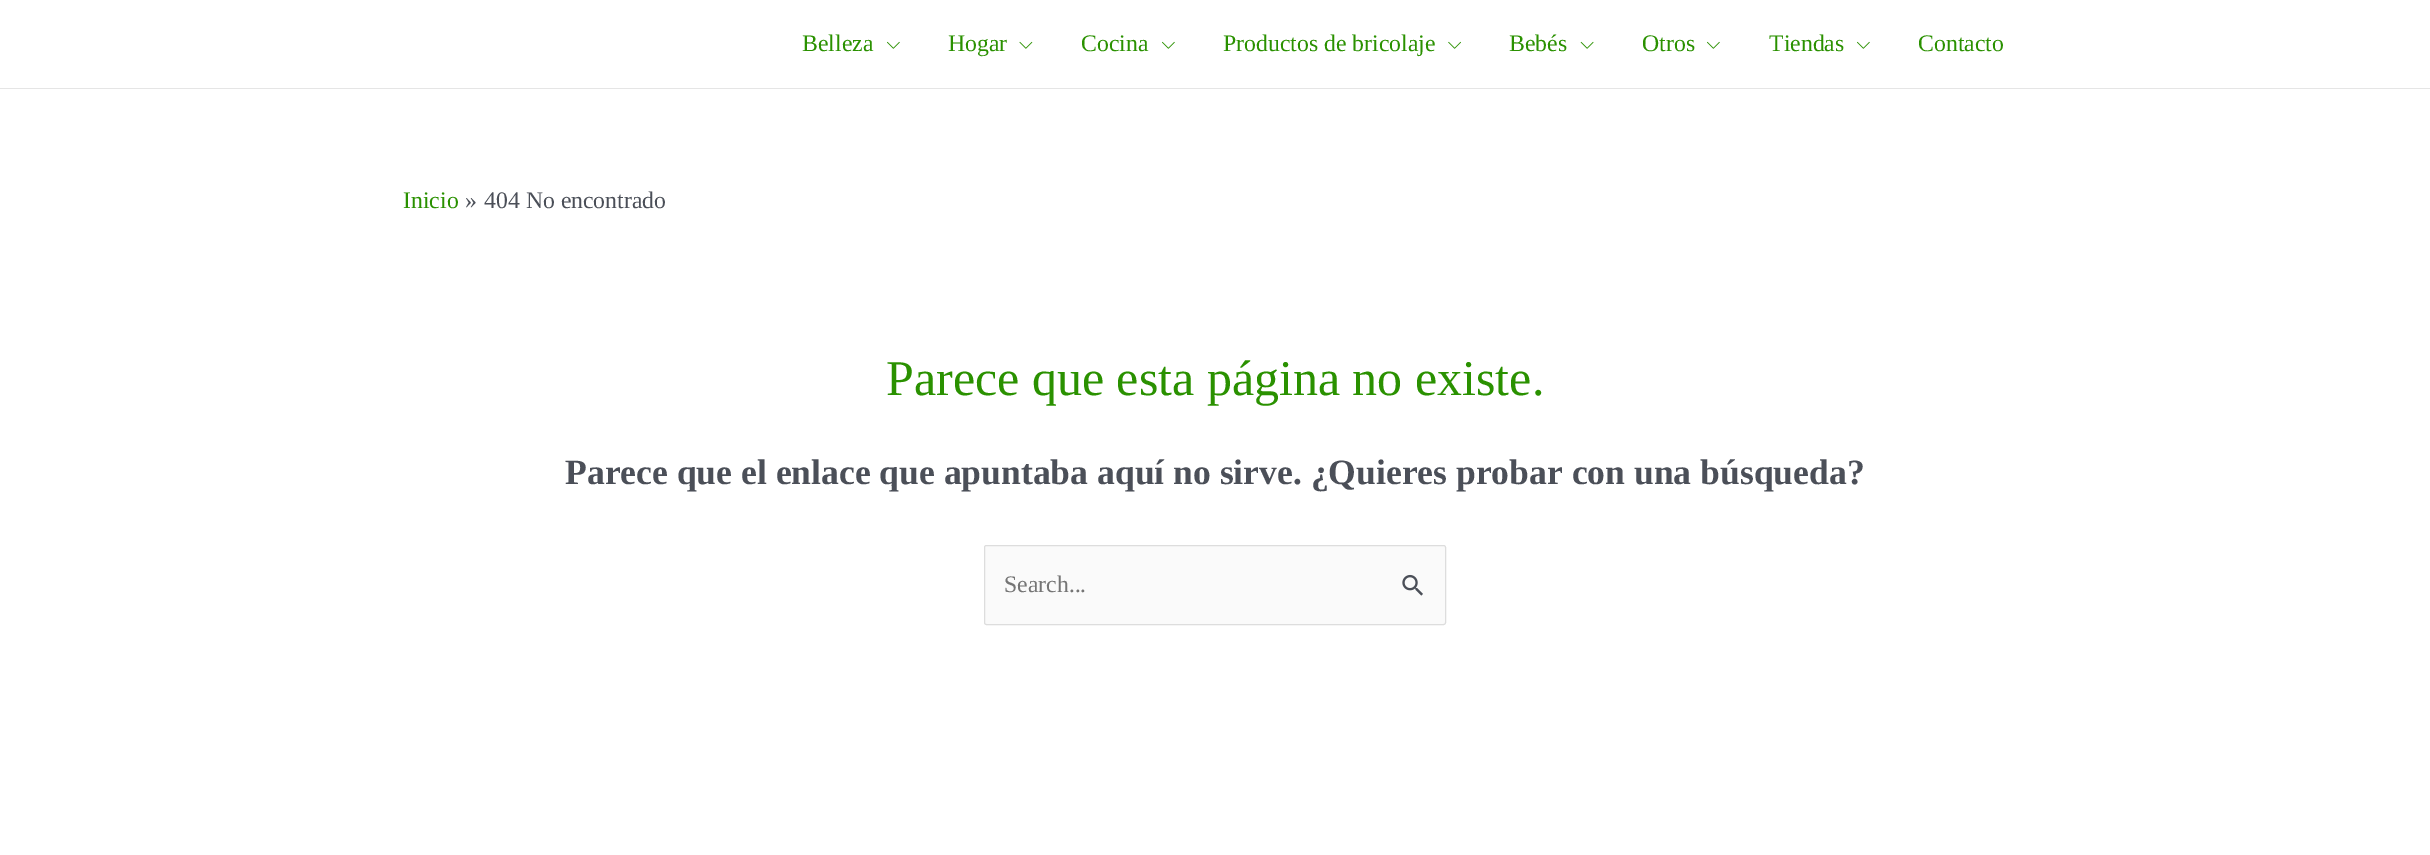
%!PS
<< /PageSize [2430 855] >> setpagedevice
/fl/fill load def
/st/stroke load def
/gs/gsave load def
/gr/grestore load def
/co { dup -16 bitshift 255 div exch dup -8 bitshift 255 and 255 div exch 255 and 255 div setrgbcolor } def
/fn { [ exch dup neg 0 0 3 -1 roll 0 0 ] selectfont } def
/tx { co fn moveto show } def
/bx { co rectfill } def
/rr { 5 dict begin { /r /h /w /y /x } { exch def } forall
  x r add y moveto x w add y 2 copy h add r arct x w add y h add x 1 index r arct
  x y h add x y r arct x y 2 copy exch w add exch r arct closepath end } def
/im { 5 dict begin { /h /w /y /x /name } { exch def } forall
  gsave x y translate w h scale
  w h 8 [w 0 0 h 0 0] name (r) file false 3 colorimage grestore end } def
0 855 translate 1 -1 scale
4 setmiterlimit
0 0 2430 855 16#FFFFFF bx
0 88 2430 1 16#E5E5E5 bx
(media/1.raw) 887 41 13 8 im
(media/2.raw) 1019 41 14 8 im
(media/1.raw) 1162 41 13 8 im
(media/3.raw) 1448 41 13 8 im
(media/4.raw) 1580 41 14 8 im
(media/1.raw) 1707 41 13 8 im
(media/1.raw) 1857 41 13 8 im
16#FAFAFA co
984.5 545.5 461 79 2 rr gs fl gr
16#DDDDDD co
st
(media/5.raw) 1402 574 21 22 im
(Belleza) 802 51 /LiberationSerif-Regular 23.75 16#2A9100 tx
(Hogar) 948 51 /LiberationSerif-Regular 23.75 16#2A9100 tx
(Cocina) 1081 51 /LiberationSerif-Regular 23.75 16#2A9100 tx
(Productos de bricolaje) 1223 51 /LiberationSerif-Regular 23.75 16#2A9100 tx
(Bebés) 1509 51 /LiberationSerif-Regular 23.75 16#2A9100 tx
(Otros) 1642 51 /LiberationSerif-Regular 23.75 16#2A9100 tx
(Tiendas) 1769 51 /LiberationSerif-Regular 23.75 16#2A9100 tx
(Contacto) 1918 51 /LiberationSerif-Regular 23.75 16#2A9100 tx
(Inicio) 403 208 /LiberationSerif-Regular 23.75 16#2A9100 tx
(») 465 208 /LiberationSerif-Regular 23.75 16#4B4F58 tx
(404 No encontrado) 484 208 /LiberationSerif-Regular 23.75 16#4B4F58 tx
(Parece que esta página no existe.) 886 395 /LiberationSerif-Regular 50 16#2A9100 tx
(Parece que el enlace que apuntaba aquí no sirve. ¿Quieres probar con una búsqueda?) 565 484 /LiberationSerif-Bold 35.6 16#4B4F58 tx
(Search...) 1004 592 /LiberationSerif-Regular 23.75 16#757575 tx
showpage
